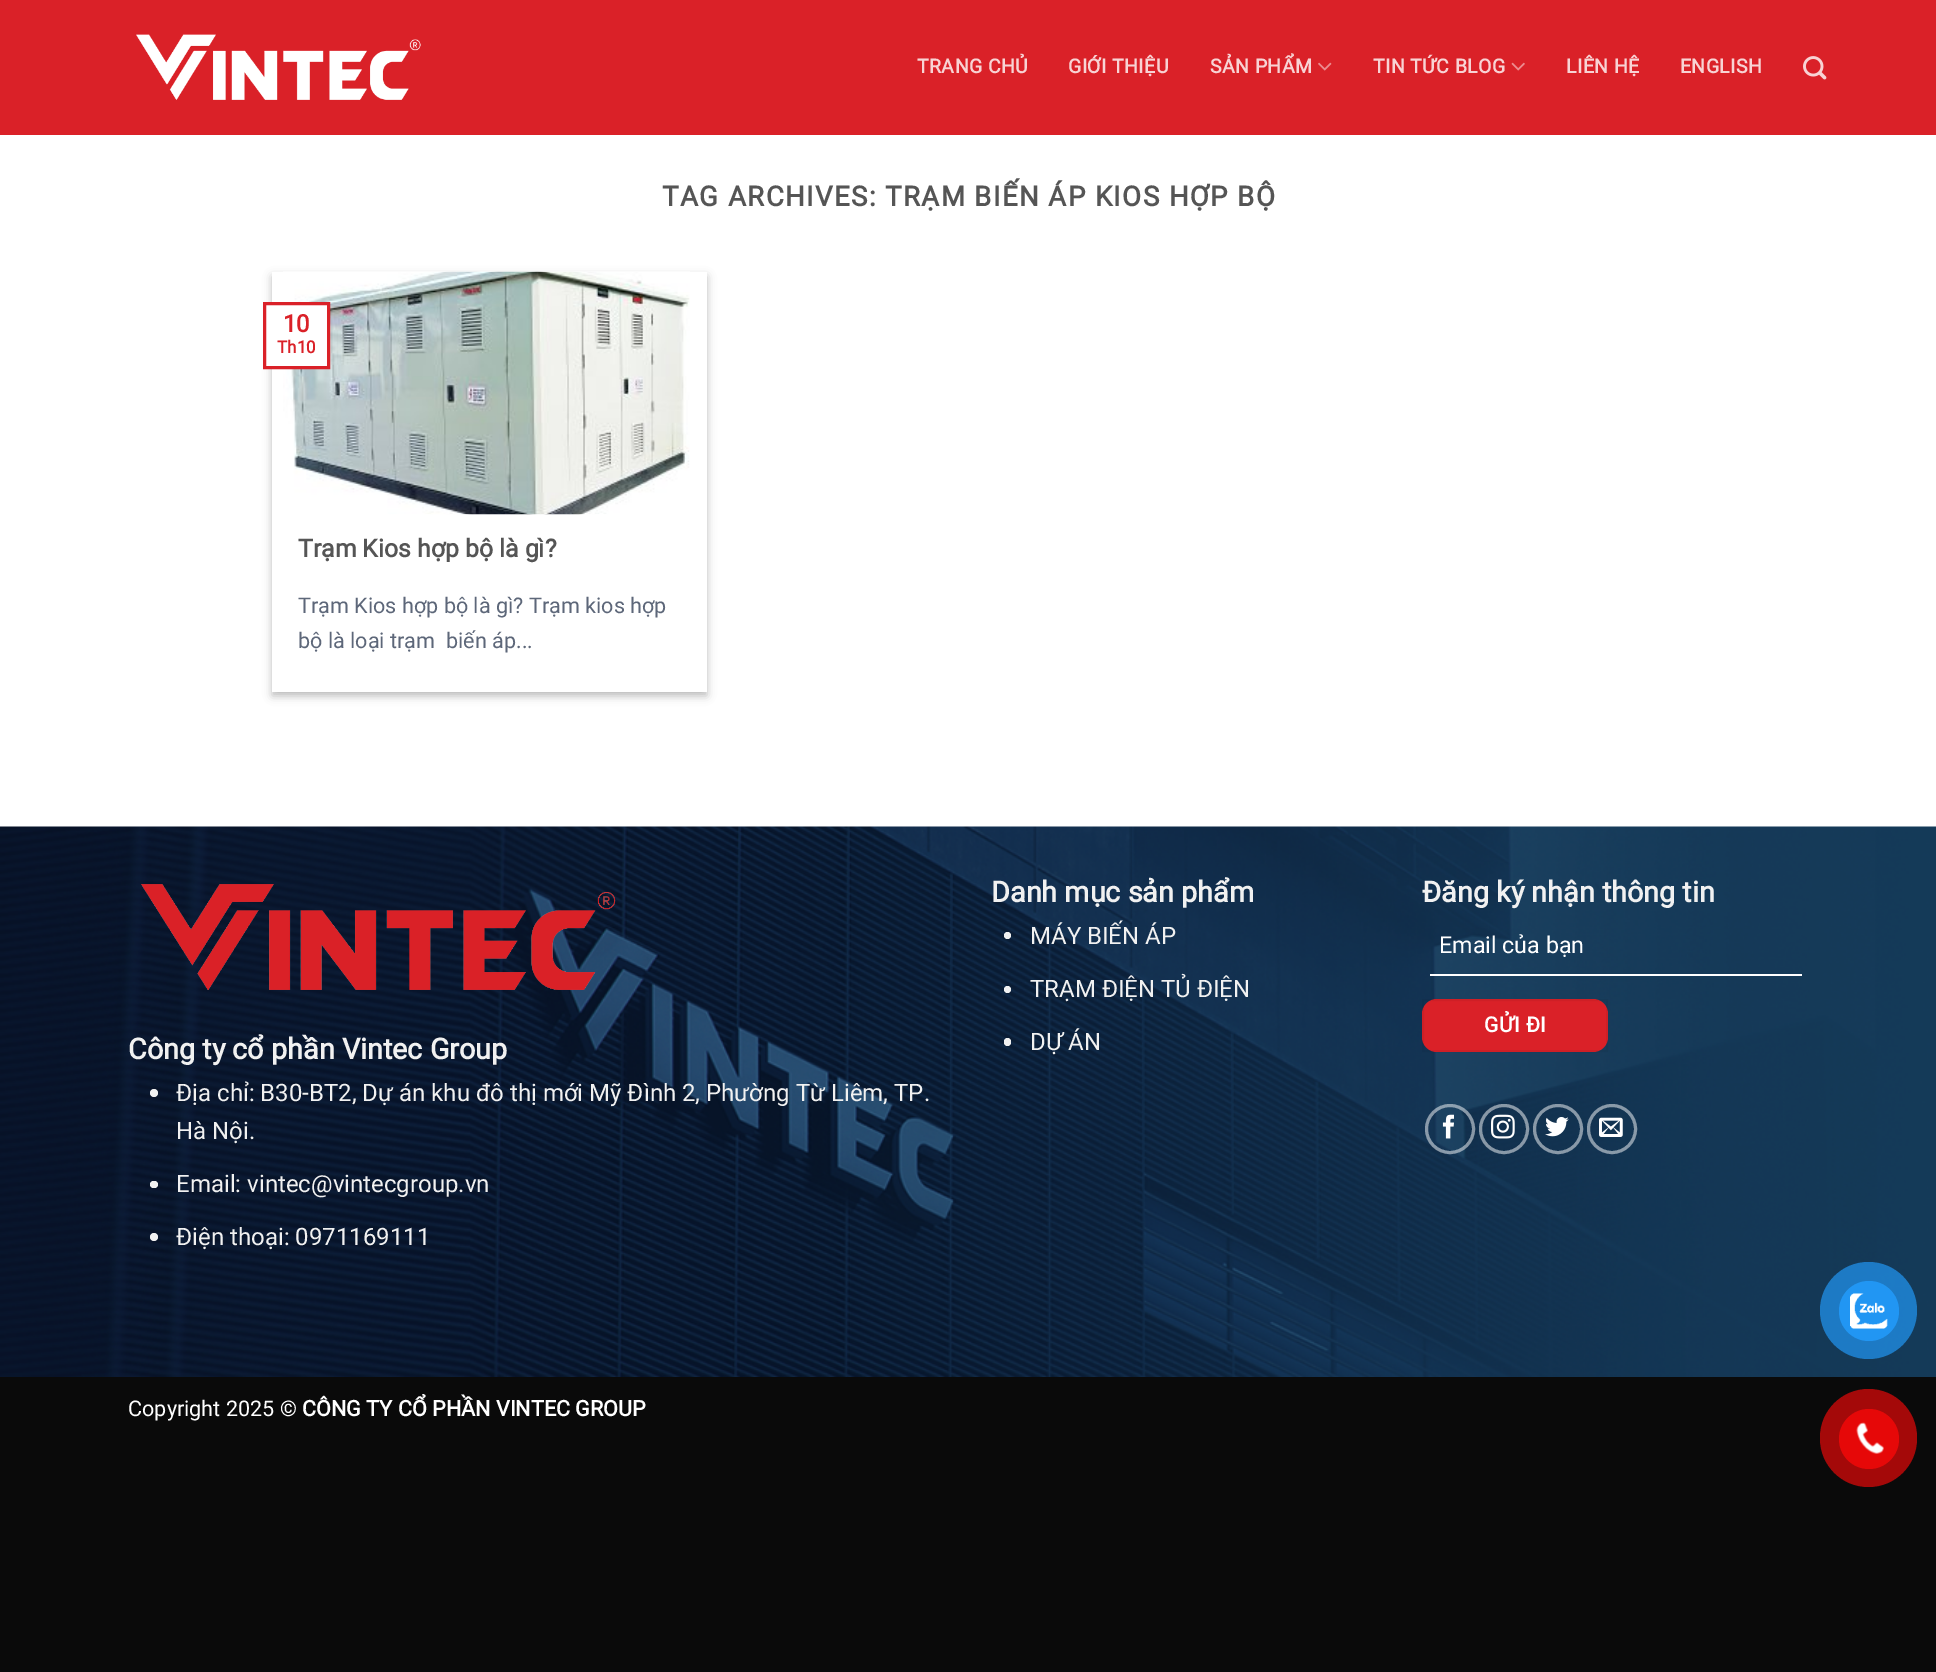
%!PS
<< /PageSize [1936 1672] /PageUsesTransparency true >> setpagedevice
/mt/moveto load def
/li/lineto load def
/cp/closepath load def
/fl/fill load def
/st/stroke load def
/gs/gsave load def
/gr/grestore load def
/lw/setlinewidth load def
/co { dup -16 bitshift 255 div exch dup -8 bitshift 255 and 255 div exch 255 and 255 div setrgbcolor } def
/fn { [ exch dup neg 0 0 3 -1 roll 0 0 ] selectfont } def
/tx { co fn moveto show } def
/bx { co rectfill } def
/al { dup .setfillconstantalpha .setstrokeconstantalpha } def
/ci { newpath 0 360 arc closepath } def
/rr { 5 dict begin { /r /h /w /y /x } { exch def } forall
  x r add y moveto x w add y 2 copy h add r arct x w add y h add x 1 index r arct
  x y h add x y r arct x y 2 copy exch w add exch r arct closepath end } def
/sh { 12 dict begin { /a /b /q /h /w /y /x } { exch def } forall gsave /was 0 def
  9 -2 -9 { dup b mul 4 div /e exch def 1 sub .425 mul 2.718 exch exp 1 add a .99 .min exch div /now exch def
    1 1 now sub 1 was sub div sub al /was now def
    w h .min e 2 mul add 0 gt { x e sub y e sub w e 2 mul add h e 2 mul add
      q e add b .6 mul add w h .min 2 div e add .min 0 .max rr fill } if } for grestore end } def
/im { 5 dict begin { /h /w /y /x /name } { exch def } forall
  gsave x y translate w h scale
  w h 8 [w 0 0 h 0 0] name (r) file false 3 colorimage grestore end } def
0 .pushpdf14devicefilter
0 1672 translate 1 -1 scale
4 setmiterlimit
0 0 1936 1672 16#0A0A0A bx
0 135 1936 692 16#FFFFFF bx
0 0 1936 135 16#DA2128 bx
(media/1.raw) 136 34 285 66 im
(media/2.raw) 1318 62 14 9 im
(media/3.raw) 1511 62 14 9 im
(media/4.raw) 1803 56 24 24 im
16#000000 co
272 276 435 420 0 4.5 .23 sh
278 282 423 408 0 4.5 .16 sh
272 272 435 420 16#FFFFFF bx
(media/5.raw) 283 271 407 244 im
264.5 303.5 mt 328.5 303.5 li 328.5 367.5 li 264.5 367.5 li cp gs fl gr
16#DA2128 co
3 lw
st
(media/6.raw) 0 826 1936 551 im
16#F1F1F1 co
1007.5 935.5 3.5 ci fl
1007.5 989.5 3.5 ci fl
1004 1038 7 8 3.5 rr fl
1430 974 372 2 16#FFFFFF bx
16#DA2128 co
1422 999 186 53 15 rr fl
0.05 al
16#000000 co
2 lw
1423 1000 184 51 rectstroke
0.5 al
16#FFFFFF co
3 lw
1450 1129 23.5 ci st
1 al
(media/7.raw) 1442 1114 12 25 im
0.5 al
1504 1129 23.5 ci st
1 al
(media/8.raw) 1491 1114 24 25 im
0.5 al
1558 1129 23.5 ci st
1 al
(media/9.raw) 1545 1117 24 20 im
0.5 al
1612 1129 23.5 ci st
1 al
(media/10.raw) 1599 1117 24 20 im
(media/11.raw) 141 884 475 106 im
16#F1F1F1 co
154 1093 4 ci fl
150 1181 8 7 3.5 rr fl
154 1237 4 ci fl
0.7 al
16#2196F3 co
1868.5 1310.5 48.5 ci fl
1 al
1869 1311 30 ci fl
(media/12.raw) 1850 1293 38 36 im
16#A40909 co
1820 1389 97 98 48.5 rr fl
16#E60808 co
1869 1439 30 ci fl
(media/13.raw) 1856 1422 28 32 im
/Roboto-Bold 19.5 fn
16#F8D3D4 co
917 73 mt .4 0 (TRANG CHỦ) ashow
1068 73 mt .4 0 (GIỚI THIỆU) ashow
1210 73 mt .4 0 (SẢN PHẨM) ashow
1373 73 mt .4 0 (TIN TỨC BLOG) ashow
1566 73 mt .4 0 (LIÊN HỆ) ashow
1680 73 mt .4 0 (ENGLISH) ashow
/Roboto-Bold 27.6 fn
16#555555 co
662 206 mt 1.4 0 (TAG ARCHIVES: TRẠM BIẾN ÁP KIOS HỢP BỘ) ashow
(10) 283 332 /Roboto-Bold 24 16#DA2128 tx
(Th10) 277 353 /Roboto-Bold 17 16#DA2128 tx
(Trạm Kios hợp bộ là gì?) 298 557 /Roboto-Bold 24.75 16#555555 tx
(Trạm Kios hợp bộ là gì? Trạm kios hợp) 298 613 /Roboto-Regular 21.6 16#5D6779 tx
(bộ là loại trạm  biến áp...) 298 648 /Roboto-Regular 21.6 16#5D6779 tx
(Danh mục sản phẩm) 991 902 /Roboto-Bold 28.75 16#F1F1F1 tx
(MÁY BIẾN ÁP) 1030 944 /Roboto-Regular 24 16#F1F1F1 tx
(TRẠM ĐIỆN TỦ ĐIỆN) 1030 997 /Roboto-Regular 24 16#F1F1F1 tx
(DỰ ÁN) 1030 1050 /Roboto-Regular 24 16#F1F1F1 tx
(Đăng ký nhận thông tin) 1422 902 /Roboto-Bold 28.75 16#F1F1F1 tx
(Email của bạn) 1439 953 /Roboto-Regular 23.25 16#FFFFFF tx
/Roboto-Bold 21 fn
1484 1032 mt .5 0 (GỬI ĐI) ashow
(Công ty cổ phần Vintec Group) 128 1059 /Roboto-Bold 28.75 16#F1F1F1 tx
(Địa chỉ: B30-BT2, Dự án khu đô thị mới Mỹ Đình 2, Phường Từ Liêm, TP.) 176 1101 /Roboto-Regular 24 16#F1F1F1 tx
(Hà Nội.) 176 1139 /Roboto-Regular 24 16#F1F1F1 tx
(Email: vintec@vintecgroup.vn) 176 1192 /Roboto-Regular 24 16#F1F1F1 tx
(Điện thoại: 0971169111) 176 1245 /Roboto-Regular 24 16#F1F1F1 tx
(Copyright 2025 ©) 128 1416 /Roboto-Regular 21.6 16#FFFFFF tx
(CÔNG TY CỔ PHẦN VINTEC GROUP) 302 1416 /Roboto-Bold 21.6 16#FFFFFF tx
.poppdf14devicefilter showpage
